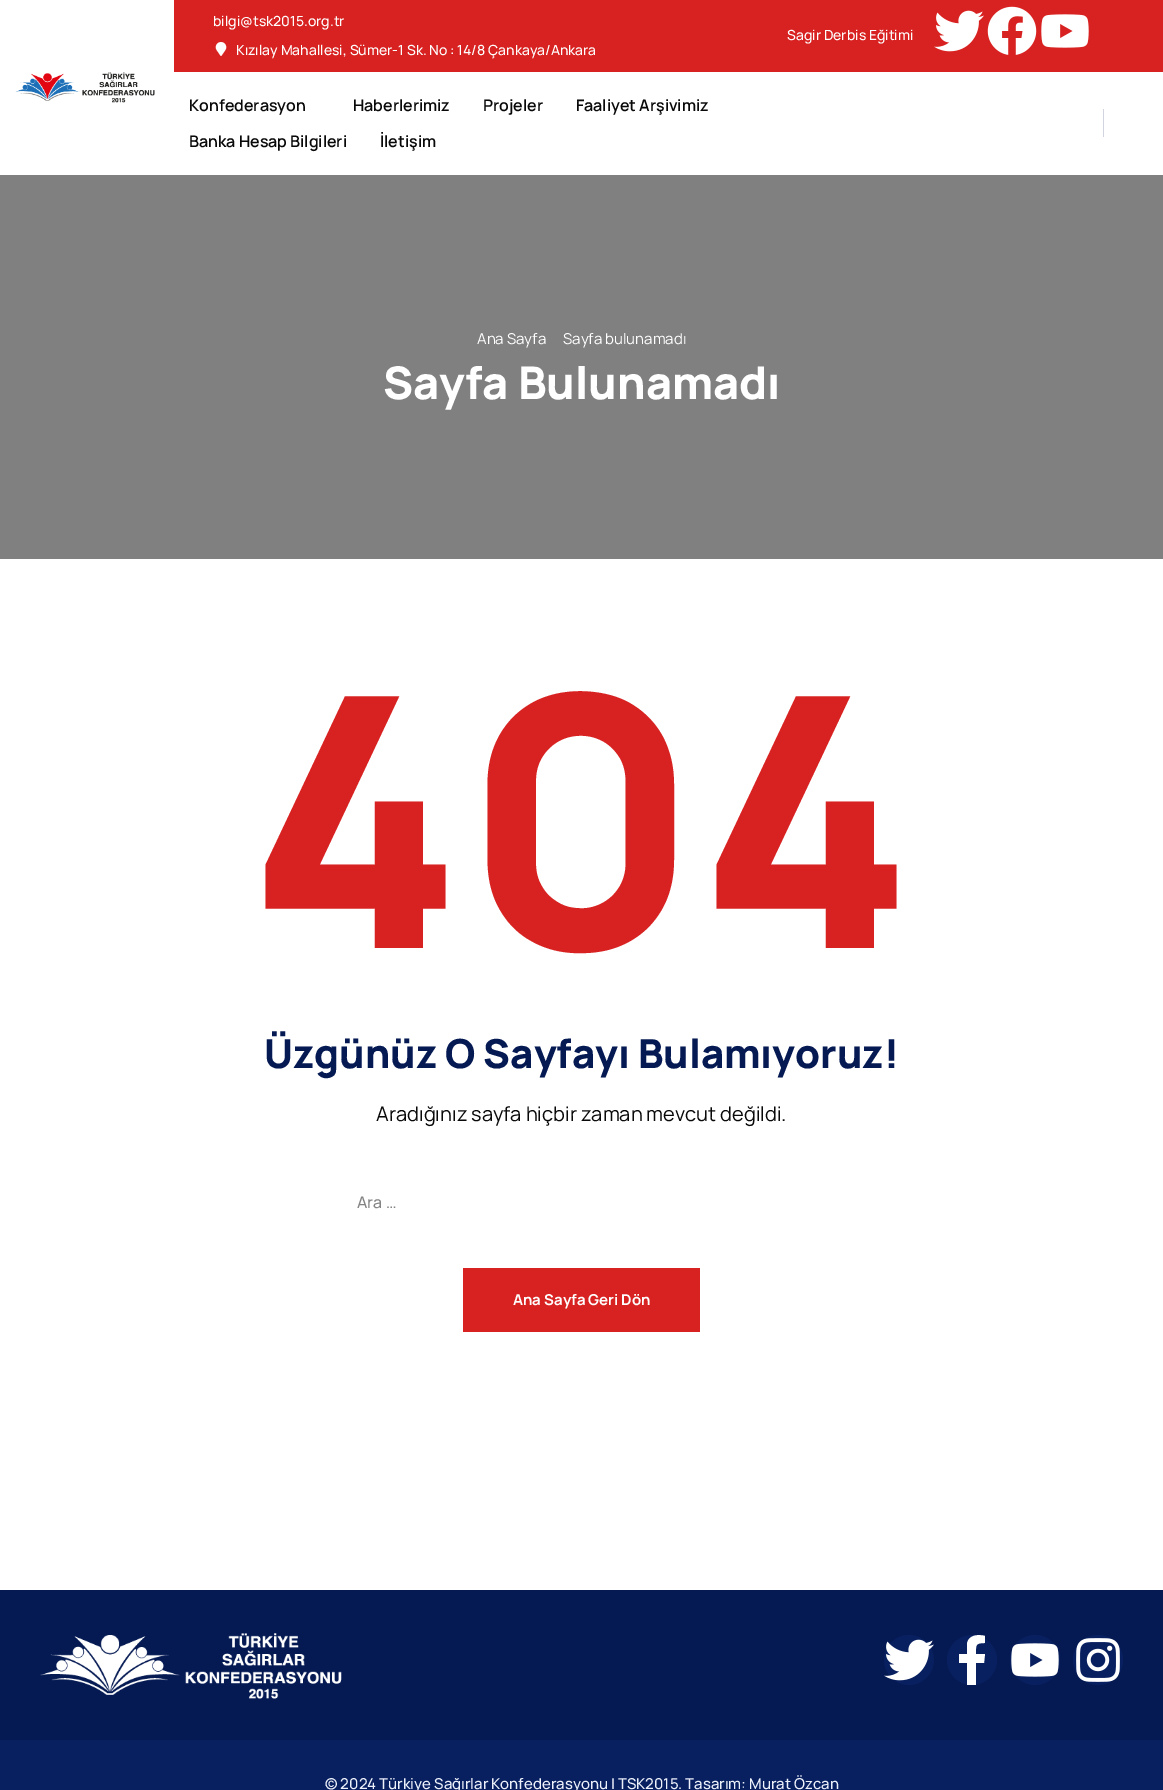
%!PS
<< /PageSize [1163 1790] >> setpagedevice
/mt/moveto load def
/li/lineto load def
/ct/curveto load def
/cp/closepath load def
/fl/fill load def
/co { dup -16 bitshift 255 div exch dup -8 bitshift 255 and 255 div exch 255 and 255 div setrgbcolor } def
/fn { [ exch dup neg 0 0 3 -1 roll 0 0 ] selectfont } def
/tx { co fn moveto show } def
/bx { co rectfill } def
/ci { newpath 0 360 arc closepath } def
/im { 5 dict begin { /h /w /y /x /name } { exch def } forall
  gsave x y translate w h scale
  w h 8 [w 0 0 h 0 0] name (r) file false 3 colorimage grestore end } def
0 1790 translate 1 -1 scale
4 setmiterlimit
0 0 1163 1790 16#FFFFFF bx
0 175 1163 384 16#808080 bx
(media/1.raw) 15 72 140 31 im
174 0 989 72 16#D82221 bx
(media/2.raw) 215 42 12 14 im
(media/3.raw) 934 10 50 42 im
(media/4.raw) 987 6 50 49 im
(media/5.raw) 1041 14 48 34 im
1103 109 1 28 16#D2D5DF bx
463 1268 237 64 16#D82221 bx
0 1590 1163 150 16#051A53 bx
(media/6.raw) 40 1633 302 66 im
16#082060 co
909 1660 25 ci fl
(media/7.raw) 884 1639 50 42 im
972 1660 25 ci fl
16#FFFFFF co
984 1663 mt 985 1654 li 976 1654 li 976 1645 975 1643 985 1643 ct 985 1636 li 978 1634 968 1635 967 1644 ct 967 1654 li 959 1654 li 959 1663 li 967 1663 li 967 1685 li 976 1685 li 976 1663 li cp fl
16#082060 co
1035 1660 25 ci fl
(media/8.raw) 1011 1643 48 34 im
1098 1660 25 ci fl
(media/9.raw) 1076 1638 44 44 im
0 1740 1163 50 16#082060 bx
(bilgi@tsk2015.org.tr) 213 26 /Manrope-Medium 14 16#FFFFFF tx
(Kızılay Mahallesi, Sümer-1 Sk. No : 14/8 Çankaya/Ankara) 236 55 /Manrope-Medium 14 16#FFFFFF tx
(Sagir Derbis Eğitimi) 787 40 /Manrope-Medium 14 16#FFFFFF tx
(Konfederasyon) 189 111 /Manrope-SemiBold 16 16#0A0909 tx
(Haberlerimiz) 353 111 /Manrope-SemiBold 16 16#0A0909 tx
(Projeler) 483 111 /Manrope-SemiBold 16 16#0A0909 tx
(Faaliyet Arşivimiz) 576 111 /Manrope-SemiBold 16 16#0A0909 tx
(Banka Hesap Bilgileri) 189 147 /Manrope-SemiBold 16 16#0A0909 tx
(İletişim) 380 147 /Manrope-SemiBold 16 16#0A0909 tx
(Ana Sayfa) 477 344 /Manrope-Regular 15 16#FFFFFF tx
(Sayfa bulunamadı) 563 344 /Manrope-Regular 15 16#FFFFFF tx
(Sayfa Bulunamadı) 383 399 /Manrope-ExtraBold 45 16#FFFFFF tx
(404) 248 948 /Manrope-ExtraBold 350 16#D82221 tx
(Üzgünüz O Sayfayı Bulamıyoruz!) 264 1068 /Manrope-ExtraBold 40 16#051A53 tx
(Aradığınız sayfa hiçbir zaman mevcut değildi.) 376 1121 /Manrope-Regular 20 16#0A0909 tx
(Ara …) 357 1208 /Manrope-Medium 16 16#858484 tx
(Ana Sayfa Geri Dön) 513 1305 /Manrope-Bold 15 16#FFFFFF tx
(© 2024 Türkiye Sağırlar Konfederasyonu | TSK2015. Tasarım: Murat Özcan) 325 1789 /Manrope-Medium 15 16#EDF1FA tx
showpage
